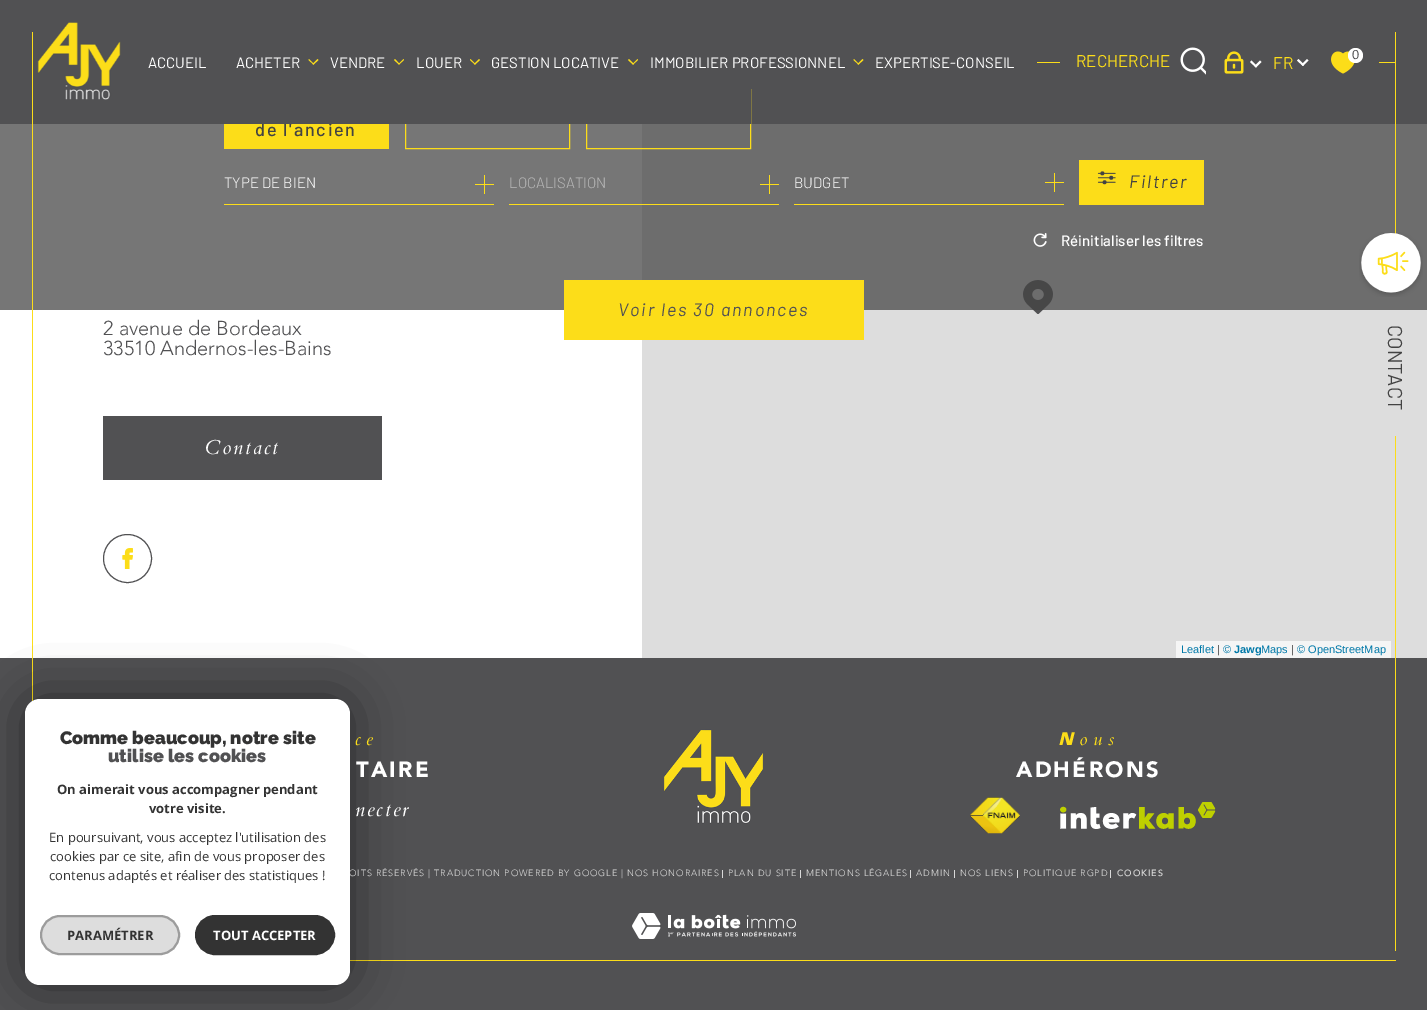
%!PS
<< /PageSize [1427 1010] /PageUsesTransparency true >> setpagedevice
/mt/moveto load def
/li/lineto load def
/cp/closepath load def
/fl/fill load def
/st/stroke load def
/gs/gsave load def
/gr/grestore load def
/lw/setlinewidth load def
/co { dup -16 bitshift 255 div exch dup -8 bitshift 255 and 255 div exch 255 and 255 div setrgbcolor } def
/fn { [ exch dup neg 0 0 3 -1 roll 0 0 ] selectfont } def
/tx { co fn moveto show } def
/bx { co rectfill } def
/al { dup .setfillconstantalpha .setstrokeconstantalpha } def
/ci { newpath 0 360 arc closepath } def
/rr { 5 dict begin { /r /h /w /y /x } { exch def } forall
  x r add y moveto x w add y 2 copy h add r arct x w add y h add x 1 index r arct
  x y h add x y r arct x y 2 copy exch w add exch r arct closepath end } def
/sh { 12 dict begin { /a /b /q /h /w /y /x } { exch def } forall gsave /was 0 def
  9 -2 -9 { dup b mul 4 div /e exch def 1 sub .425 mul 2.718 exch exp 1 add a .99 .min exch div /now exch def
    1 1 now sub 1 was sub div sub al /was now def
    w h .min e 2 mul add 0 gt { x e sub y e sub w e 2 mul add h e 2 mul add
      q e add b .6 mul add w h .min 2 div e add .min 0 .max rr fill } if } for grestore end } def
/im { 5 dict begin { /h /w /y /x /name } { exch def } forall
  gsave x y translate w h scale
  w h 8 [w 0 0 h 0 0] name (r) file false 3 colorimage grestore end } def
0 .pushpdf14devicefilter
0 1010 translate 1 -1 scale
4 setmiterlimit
0 0 1427 1010 16#515153 bx
0 124 642 534 16#FFFFFF bx
642 124 785 534 16#DDDDDD bx
(media/9.raw) 1023 280 30 34 im
0.73 al
0 124 1427 186 16#434343 bx
1 al
32 32 1 670 16#FCDD19 bx
(media/1.raw) 37 22 84 78 im
313.5 64.5 mt 308.5 60 li 309 59 li 314 64 li cp fl
313.5 64.5 mt 312.5 64 li 317.5 59 li 318.5 60 li cp fl
399 64.5 mt 394 60 li 395 59 li 399.5 64 li cp fl
399 64.5 mt 398.5 64 li 403.5 59 li 404 60 li cp fl
475 64.5 mt 470 60 li 470.5 59 li 475.5 64 li cp fl
475 64.5 mt 474 64 li 479 59 li 480 60 li cp fl
633 64.5 mt 628 60 li 629 59 li 634 64 li cp fl
633 64.5 mt 632.5 64 li 637.5 59 li 638 60 li cp fl
858.5 64.5 mt 853.5 60 li 854 59 li 859 64 li cp fl
858.5 64.5 mt 857.5 64 li 862.5 59 li 863.5 60 li cp fl
1037 62 358 1 16#FCDD19 bx
1060 62 319 1 16#515153 bx
(media/2.raw) 1180 47 26 28 im
(media/3.raw) 1224 51 20 23 im
16#FFFFFF co
1307 59 mt 1308.5 60.5 li 1303 66 li 1301.5 64.5 li cp fl
(media/4.raw) 1331 51 24 23 im
1355.5 55.5 7.5 ci fl
224 124 165 25 16#FCDD19 bx
405.5 89.5 164 59 rectstroke
586.5 89.5 164 59 rectstroke
224 204 270 1 16#FCDD19 bx
475 184 19 1 16#FCDD19 bx
484 175 1 19 16#FCDD19 bx
509 204 270 1 16#FCDD19 bx
769 175 1 19 16#FCDD19 bx
760 184 19 1 16#FCDD19 bx
794 204 270 1 16#FCDD19 bx
1054 173 1 19 16#FCDD19 bx
1045 182 19 1 16#FCDD19 bx
1079 160 125 45 16#FCDD19 bx
(media/5.raw) 1097 171 19 14 im
564 280 300 60 16#FCDD19 bx
(media/6.raw) 1033 233 14 14 im
1395 32 1 202 16#FCDD19 bx
1395 436 1 515 16#FCDD19 bx
(media/7.raw) 1359 232 64 65 im
103 416 279 64 16#515153 bx
127.5 558.5 24 ci st
(media/8.raw) 122 548 11 21 im
1176 641 215 17 16#F5F5F5 bx
(media/10.raw) 664 729 99 95 im
(media/11.raw) 970 797 50 37 im
(media/12.raw) 1060 802 156 27 im
722 870 1 8 16#D9D9D9 bx
800 870 1 8 16#D9D9D9 bx
910 870 1 8 16#D9D9D9 bx
954 870 1 8 16#D9D9D9 bx
1017 870 1 8 16#D9D9D9 bx
1110 870 1 8 16#D9D9D9 bx
(media/13.raw) 632 913 164 26 im
350 960 1046 1 16#FCDD19 bx
16#000000 co
25 699 325 286 15 25 .5 sh
(ACCUEIL) 148 68 /Barlow-Regular 15 16#FFFFFF tx
(ACHETER) 236 68 /Barlow-Regular 15 16#FFFFFF tx
(VENDRE) 330 68 /Barlow-Regular 15 16#FFFFFF tx
(LOUER) 416 68 /Barlow-Regular 15 16#FFFFFF tx
(GESTION LOCATIVE) 491 68 /Barlow-Regular 15 16#FFFFFF tx
(IMMOBILIER PROFESSIONNEL) 650 68 /Barlow-Regular 15 16#FFFFFF tx
(EXPERTISE-CONSEIL) 875 68 /Barlow-Regular 15 16#FFFFFF tx
(RECHERCHE) 1076 67 /Barlow-Regular 17 16#FCDD19 tx
(FR) 1273 69 /Barlow-Regular 17 16#FCDD19 tx
16#FFFFFF co
1298.5 59 mt 1304 64.5 li 1303 66 li 1297 60.5 li cp 1260 60.5 mt 1261.5 62 li 1256 67.5 li 1254.5 66 li cp fl
1251.5 60.5 mt 1257 66 li 1256 67.5 li 1250 62 li cp fl
(0) 1352 59 /LiberationSans-Regular 13 16#515153 tx
/Barlow-Medium 18 fn
16#434343 co
255 136 mt 1.75 0 (de l'ancien) ashow
262 89 489 35 16#515153 bx
(TYPE DE BIEN) 224 188 /Barlow-Light 15 16#FFFFFF tx
(LOCALISATION) 509 188 /Barlow-Light 15 16#BABABA tx
(BUDGET) 794 188 /Barlow-Light 15 16#FFFFFF tx
/Barlow-Italic 18 fn
16#434343 co
1129 188 mt 1.75 0 (Filtrer) ashow
16#515153 co
618 316 mt 1.75 0 (Voir les 30) ashow
721 316 mt 1.75 0 (annonces) ashow
(Réinitialiser les filtres) 1061 246 /Barlow-Medium 15 16#FFFFFF tx
/Barlow-Regular 20 fn
16#434343 co
gs 1388 325 translate 90 rotate 0 0 mt (CONTACT) show gr
(2 avenue de Bordeaux) 103 335 /Avenir-Light 20 16#515153 tx
(33510 Andernos-les-Bains) 103 355 /Avenir-Light 20 16#515153 tx
/Cardo-Italic 20 fn
16#FFFFFF co
205 454 mt 2 0 (Contact) ashow
(Leaflet) 1181 653 /LiberationSans-Regular 11 16#0078A8 tx
(|) 1217 653 /LiberationSans-Regular 11 16#333333 tx
(©) 1223 653 /LiberationSans-Regular 11 16#0078A8 tx
(Jawg) 1234 653 /LiberationSans-Bold 11 16#0078A8 tx
(Maps) 1261 653 /LiberationSans-Regular 11 16#0078A8 tx
(|) 1291 653 /LiberationSans-Regular 11 16#333333 tx
(© OpenStreetMap) 1297 653 /LiberationSans-Regular 11 16#0078A8 tx
/Cardo-Italic 18 fn
16#FCDD19 co
355 745 mt 5.5 0 (ce) ashow
/Avenir-Black 22 fn
16#FFFFFF co
356 777 mt 2.25 0 (TAIRE) ashow
/Cardo-Italic 20 fn
355 816 mt 2 0 (necter) ashow
/NotoSans-BlackItalic 18 fn
16#FCDD19 co
1058 745 mt 5.5 0 (N) ashow
/Cardo-Italic 18 fn
1079 745 mt 5.5 0 (ous) ashow
/Avenir-Black 22 fn
16#FFFFFF co
1016 777 mt 2.25 0 (ADHÉRONS) ashow
/Avenir-Light 9 fn
16#D9D9D9 co
349 876 mt .9 0 (OITS RÉSERVÉS | TRADUCTION POWERED BY GOOGLE |) ashow
627 876 mt .9 0 (NOS HONORAIRES) ashow
728 876 mt .9 0 (PLAN DU SITE) ashow
806 876 mt .9 0 (MENTIONS LÉGALES) ashow
916 876 mt .9 0 (ADMIN) ashow
960 876 mt .9 0 (NOS LIENS) ashow
1023 876 mt .9 0 (POLITIQUE RGPD) ashow
/Avenir-Medium 9 fn
1117 876 mt .9 0 (COOKIES) ashow
16#FFFFFF co
25 699 325 286 15 rr fl
(Comme beaucoup, notre site) 60 744 /Raleway-Thin 18 16#333333 tx
(utilise les cookies) 108 762 /Raleway-Thin 18 16#515153 tx
(On aimerait vous accompagner pendant) 57 794 /OpenSans-Bold 13 16#333333 tx
(votre visite.) 149 813 /OpenSans-Bold 13 16#333333 tx
(En poursuivant, vous acceptez l'utilisation des) 49 842 /OpenSans-Regular 13 16#333333 tx
(cookies par ce site, afin de vous proposer des) 50 861 /OpenSans-Regular 13 16#333333 tx
(contenus adaptés et réaliser des statistiques !) 49 880 /OpenSans-Regular 13 16#333333 tx
16#DDDDDD co
41 916 138 38 19 rr gs fl gr
16#9C9C9C co
2 lw
st
(PARAMÉTRER) 67 940 /OpenSans-Bold 13 16#333333 tx
196 916 138 38 19 rr gs fl gr
st
(TOUT ACCEPTER) 213 940 /OpenSans-Bold 13 16#FFFFFF tx
.poppdf14devicefilter showpage
